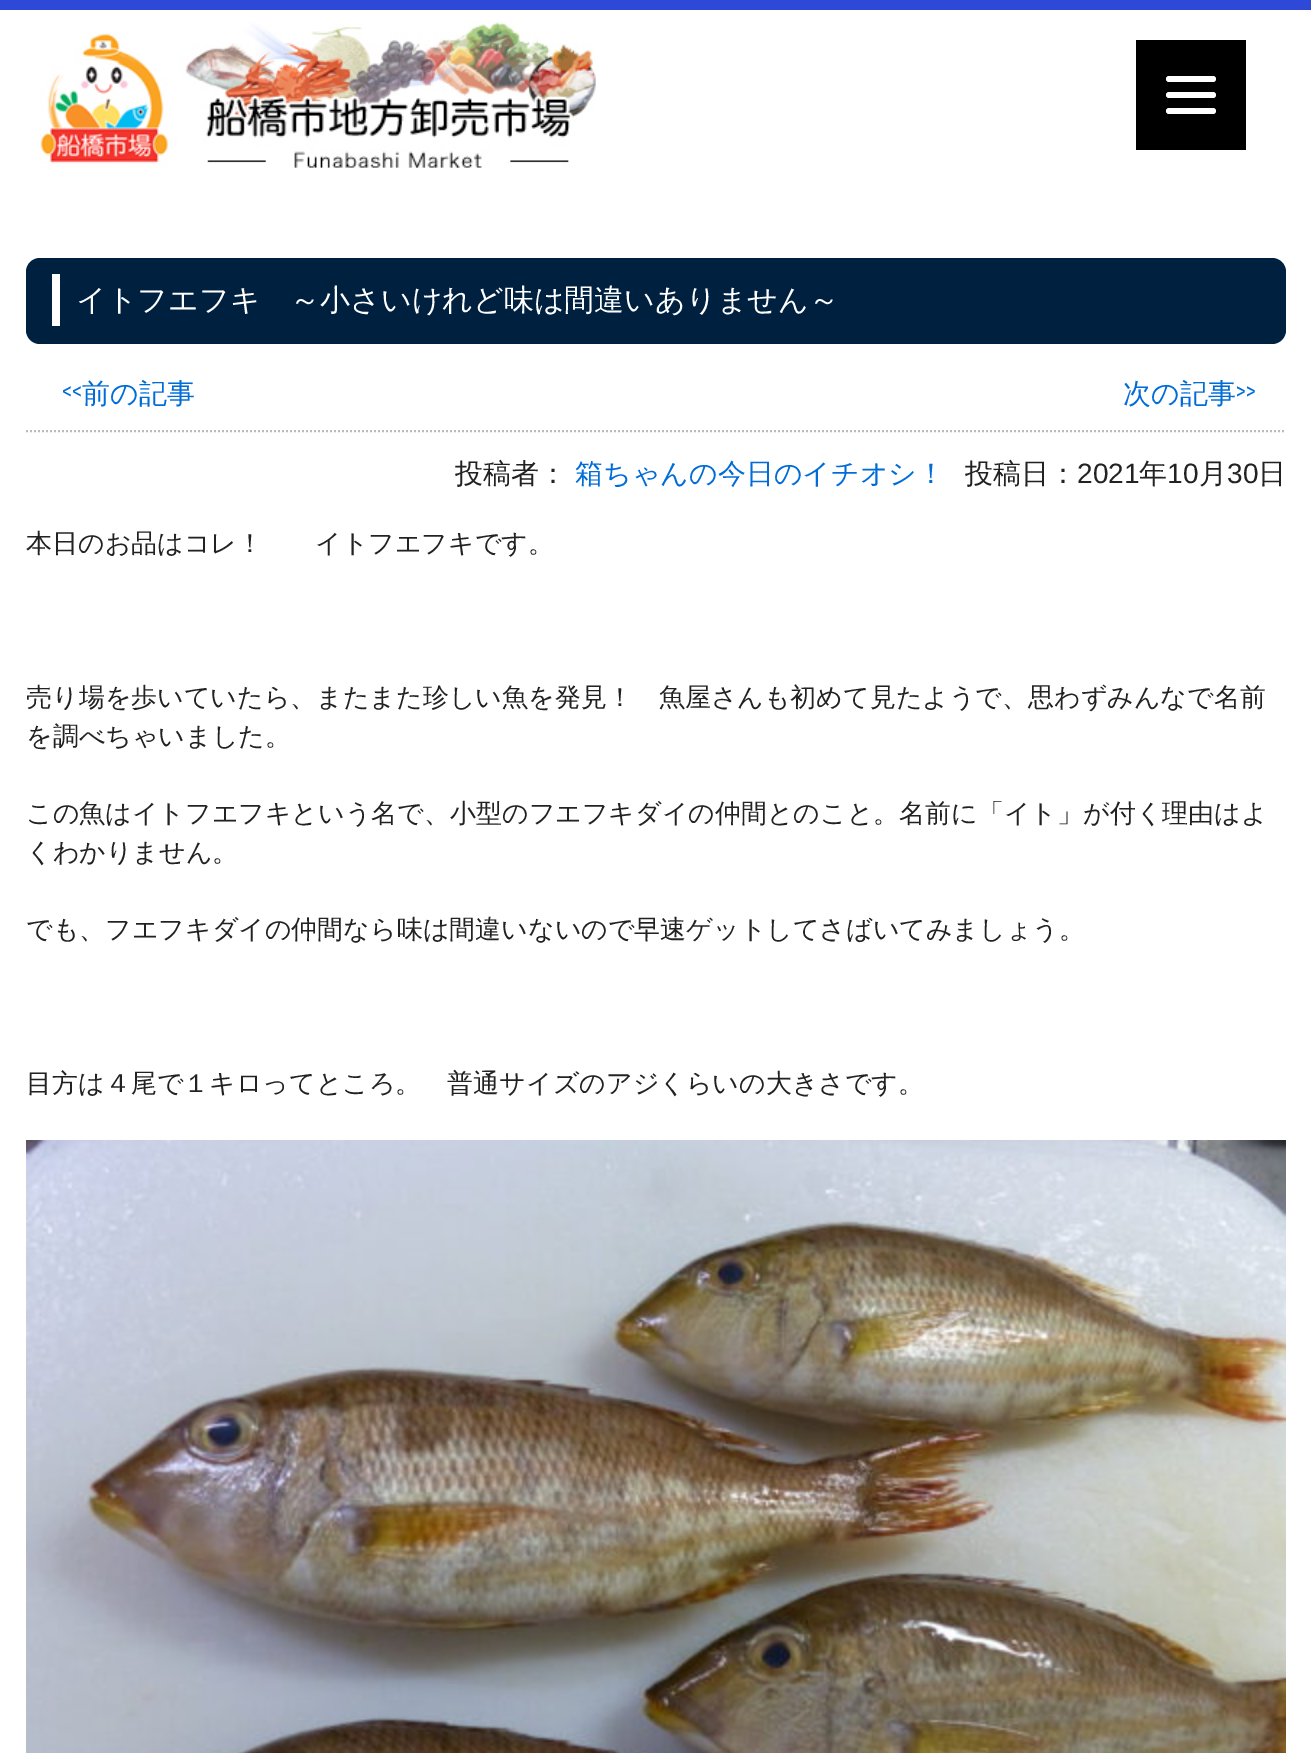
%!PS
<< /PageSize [1311 1753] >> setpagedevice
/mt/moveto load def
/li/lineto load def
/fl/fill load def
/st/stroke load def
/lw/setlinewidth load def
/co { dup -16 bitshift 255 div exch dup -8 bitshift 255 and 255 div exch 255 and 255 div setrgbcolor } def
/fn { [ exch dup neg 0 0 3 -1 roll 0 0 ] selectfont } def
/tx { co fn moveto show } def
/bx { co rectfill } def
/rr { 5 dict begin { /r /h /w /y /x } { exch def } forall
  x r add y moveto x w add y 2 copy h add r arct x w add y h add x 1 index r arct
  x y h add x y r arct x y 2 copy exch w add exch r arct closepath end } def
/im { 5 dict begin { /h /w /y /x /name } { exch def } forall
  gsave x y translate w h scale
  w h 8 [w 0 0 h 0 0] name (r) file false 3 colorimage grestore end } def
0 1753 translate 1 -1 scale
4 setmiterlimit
0 0 1311 1753 16#2E49D8 bx
0 10 1311 1743 16#FFFFFF bx
1136 40 110 110 16#000000 bx
16#FFFFFF co
1166 92 50 6 3 rr fl
1166 76 50 6 3 rr fl
1166 108 50 6 3 rr fl
(media/1.raw) 40 20 556 148 im
16#002040 co
26 258 1260 86 14 rr fl
52 274 8 52 16#FFFFFF bx
16#BBBBBB co
2 lw
[2 2] 0 setdash
26 431 mt 1286 431 li st
(media/2.raw) 26 1140 1260 613 im
(イトフエフキ　～小さいけれど味は間違いありません～) 76 310 /WenQuanYiZenHei-Medium 30 16#FFFFFF tx
(<<) 62 403 /Oswald-Light 28 16#006CD8 tx
(前の記事) 82 403 /WenQuanYiZenHei-Medium 28 16#006CD8 tx
(次の記事) 1123 403 /WenQuanYiZenHei-Medium 28 16#006CD8 tx
(>>) 1236 403 /Oswald-Light 28 16#006CD8 tx
(投稿者：) 455 483 /WenQuanYiZenHei-Medium 28 16#222222 tx
(箱ちゃんの今日のイチオシ！) 575 483 /WenQuanYiZenHei-Medium 28 16#006CD8 tx
(投稿日：) 965 483 /WenQuanYiZenHei-Medium 28 16#222222 tx
(2021) 1077 483 /LiberationSans-Regular 28 16#222222 tx
(年) 1139 483 /WenQuanYiZenHei-Medium 28 16#222222 tx
(10) 1167 483 /LiberationSans-Regular 28 16#222222 tx
(月) 1199 483 /WenQuanYiZenHei-Medium 28 16#222222 tx
(30) 1227 483 /LiberationSans-Regular 28 16#222222 tx
(日) 1258 483 /WenQuanYiZenHei-Medium 28 16#222222 tx
(本日のお品はコレ！　　イトフエフキです。) 26 552 /WenQuanYiZenHei-Medium 26 16#222222 tx
(売り場を歩いていたら、またまた珍しい魚を発見！　魚屋さんも初めて見たようで、思わずみんなで名前) 26 706 /WenQuanYiZenHei-Medium 26 16#222222 tx
(を調べちゃいました。) 26 745 /WenQuanYiZenHei-Medium 26 16#222222 tx
(この魚はイトフエフキという名で、小型のフエフキダイの仲間とのこと。名前に「イト」が付く理由はよ) 26 822 /WenQuanYiZenHei-Medium 26 16#222222 tx
(くわかりません。) 26 861 /WenQuanYiZenHei-Medium 26 16#222222 tx
(でも、フエフキダイの仲間なら味は間違いないので早速ゲットしてさばいてみましょう。) 26 938 /WenQuanYiZenHei-Medium 26 16#222222 tx
(目方は４尾で１キロってところ。　普通サイズのアジくらいの大きさです。) 26 1092 /WenQuanYiZenHei-Medium 26 16#222222 tx
showpage
